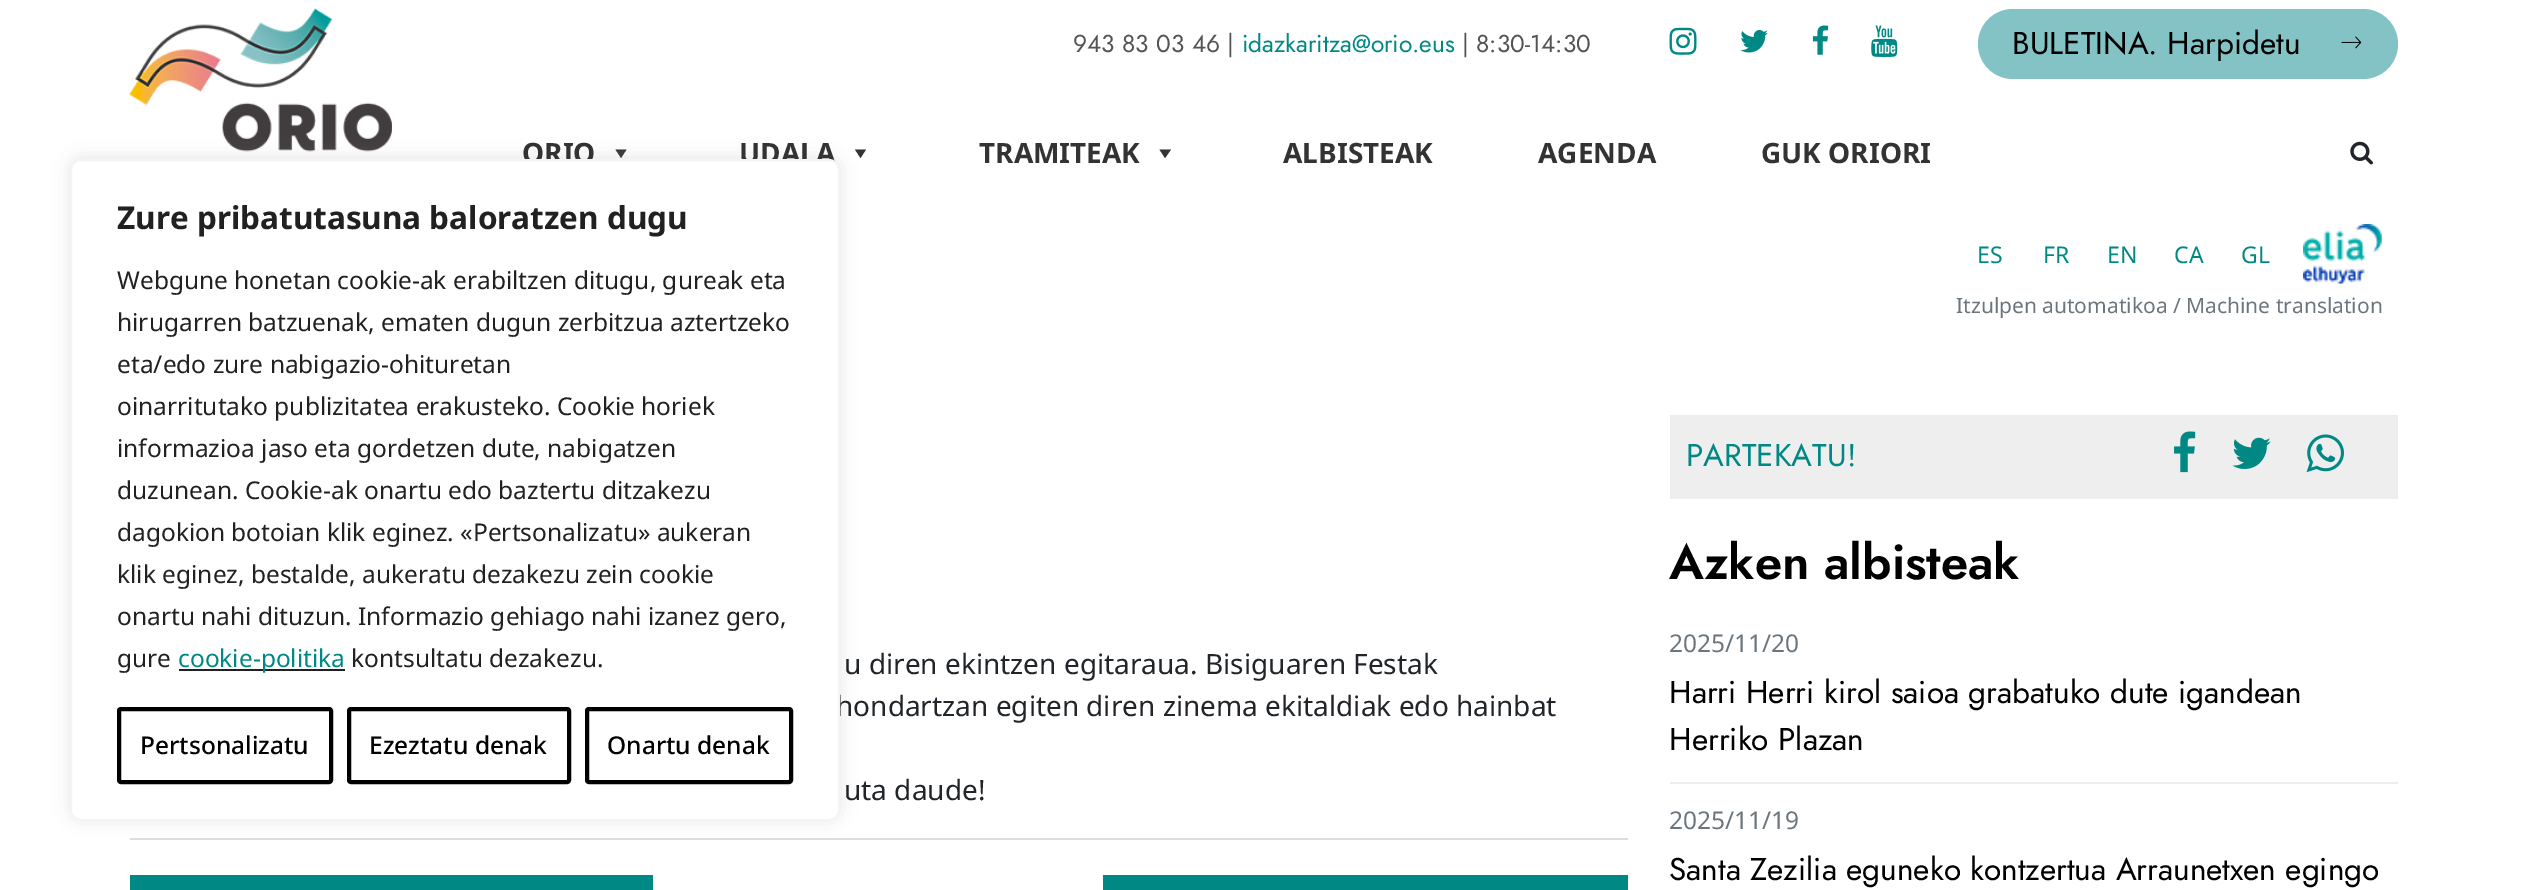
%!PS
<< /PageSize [2524 890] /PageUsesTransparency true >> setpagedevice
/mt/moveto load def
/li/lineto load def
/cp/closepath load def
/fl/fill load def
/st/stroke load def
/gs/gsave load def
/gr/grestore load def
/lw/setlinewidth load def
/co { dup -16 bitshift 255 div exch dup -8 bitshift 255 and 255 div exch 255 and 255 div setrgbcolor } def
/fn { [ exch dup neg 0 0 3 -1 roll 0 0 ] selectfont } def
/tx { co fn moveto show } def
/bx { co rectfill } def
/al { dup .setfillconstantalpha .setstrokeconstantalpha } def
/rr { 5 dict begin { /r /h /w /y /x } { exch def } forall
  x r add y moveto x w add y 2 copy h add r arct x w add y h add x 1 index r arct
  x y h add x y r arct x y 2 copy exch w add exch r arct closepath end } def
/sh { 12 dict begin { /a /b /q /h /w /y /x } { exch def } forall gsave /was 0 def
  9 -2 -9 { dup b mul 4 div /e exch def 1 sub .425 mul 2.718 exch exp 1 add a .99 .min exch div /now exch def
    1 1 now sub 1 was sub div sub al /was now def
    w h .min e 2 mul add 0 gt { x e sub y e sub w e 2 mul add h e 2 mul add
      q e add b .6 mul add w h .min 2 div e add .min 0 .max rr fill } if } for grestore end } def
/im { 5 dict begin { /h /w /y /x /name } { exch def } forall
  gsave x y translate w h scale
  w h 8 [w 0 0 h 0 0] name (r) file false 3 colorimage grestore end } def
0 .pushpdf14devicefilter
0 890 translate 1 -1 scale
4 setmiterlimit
0 0 2524 890 16#FFFFFF bx
(media/1.raw) 129 8 263 144 im
16#333333 co
626.5 149.5 mt 621 158 li 615.5 149.5 li cp fl
866 149.5 mt 860.5 158 li 855 149.5 li cp fl
130 838 1498 2 16#DDDDDD bx
16#ACABAB co
70 158 770 661 11 9 .3 sh
(media/2.raw) 1669 27 28 28 im
(media/3.raw) 1740 30 28 23 im
(media/4.raw) 1812 25 17 30 im
(media/5.raw) 1871 25 27 32 im
16#83C3C5 co
1978 9 420 70 35 rr fl
(media/6.raw) 2341 36 21 13 im
16#333333 co
1171 149.5 mt 1165 158 li 1159.5 149.5 li cp fl
(media/7.raw) 2350 141 23 24 im
(media/8.raw) 2303 224 79 60 im
130 875 523 15 16#008984 bx
1103 875 525 15 16#008984 bx
1670 415 728 84 16#EEEEEE bx
(media/9.raw) 2174 431 22 42 im
(media/10.raw) 2232 437 39 32 im
(media/11.raw) 2306 434 38 39 im
1670 782 728 2 16#EEEEEE bx
(943 83 03 46 |) 1073 52 /Jost-Regular 24.5 16#545454 tx
(idazkaritza@orio.eus) 1242 52 /Jost-Regular 24.5 16#008984 tx
(| 8:30-14:30) 1462 52 /Jost-Regular 24.5 16#545454 tx
(BULETINA. Harpidetu) 2012 54 /Jost-Regular 31.5 16#000000 tx
(ORIO) 522 163 /NotoSans-Bold 28 16#333333 tx
(UDALA) 739 163 /NotoSans-Bold 28 16#333333 tx
(TRAMITEAK) 979 163 /NotoSans-Bold 28 16#333333 tx
(ALBISTEAK) 1283 163 /NotoSans-Bold 28 16#333333 tx
(AGENDA) 1538 163 /NotoSans-Bold 28 16#333333 tx
(GUK ORIORI) 1761 163 /NotoSans-Bold 28 16#333333 tx
(ES) 1977 263 /NotoSans-Regular 23 16#008984 tx
(FR) 2043 263 /NotoSans-Regular 23 16#008984 tx
(EN) 2107 263 /NotoSans-Regular 23 16#008984 tx
(CA) 2174 263 /NotoSans-Regular 23 16#008984 tx
(GL) 2241 263 /NotoSans-Regular 23 16#008984 tx
(Itzulpen automatikoa / Machine translation) 1956 313 /NotoSans-Regular 21 16#6C757D tx
(u diren ekintzen egitaraua. Bisiguaren Festak) 844 674 /NotoSans-Regular 28 16#212529 tx
(hondartzan egiten diren zinema ekitaldiak edo hainbat) 836 716 /NotoSans-Regular 28 16#212529 tx
16#FFFFFF co
71 160 768 660 10 rr gs fl gr
16#F4F4F4 co
2 lw
st
16#000000 co
4 lw
587 709 204 73 2 rr st
(Onartu denak) 607 754 /NotoSans-Medium 24.5 16#000000 tx
349 709 220 73 2 rr st
(Ezeztatu denak) 369 754 /NotoSans-Medium 24.5 16#000000 tx
119 709 212 73 2 rr st
(Pertsonalizatu) 140 754 /NotoSans-Medium 24.5 16#000000 tx
(kontsultatu dezakezu.) 351 667 /NotoSans-Regular 24.5 16#212121 tx
179 669 166 2 16#212121 bx
(cookie-politika) 178 667 /NotoSans-Regular 24.5 16#008984 tx
(gure) 117 667 /NotoSans-Regular 24.5 16#212121 tx
(onartu nahi dituzun. Informazio gehiago nahi izanez gero,) 117 625 /NotoSans-Regular 24.5 16#212121 tx
(klik eginez, bestalde, aukeratu dezakezu zein cookie) 117 583 /NotoSans-Regular 24.5 16#212121 tx
(dagokion botoian klik eginez. «Pertsonalizatu» aukeran) 117 541 /NotoSans-Regular 24.5 16#212121 tx
(duzunean. Cookie-ak onartu edo baztertu ditzakezu) 117 499 /NotoSans-Regular 24.5 16#212121 tx
(informazioa jaso eta gordetzen dute, nabigatzen) 117 457 /NotoSans-Regular 24.5 16#212121 tx
(oinarritutako publizitatea erakusteko. Cookie horiek) 117 415 /NotoSans-Regular 24.5 16#212121 tx
(eta/edo zure nabigazio-ohituretan) 117 373 /NotoSans-Regular 24.5 16#212121 tx
(hirugarren batzuenak, ematen dugun zerbitzua aztertzeko) 117 331 /NotoSans-Regular 24.5 16#212121 tx
(Webgune honetan cookie-ak erabiltzen ditugu, gureak eta) 117 289 /NotoSans-Regular 24.5 16#212121 tx
(Zure pribatutasuna baloratzen dugu) 117 229 /NotoSans-Bold 31.5 16#212121 tx
(uta daude!) 844 800 /NotoSans-Regular 28 16#212529 tx
(PARTEKATU!) 1686 466 /Jost-Regular 31.5 16#008984 tx
(Azken albisteak) 1669 579 /Jost-SemiBold 49 16#000000 tx
(2025/11/20) 1669 652 /NotoSans-Regular 24.5 16#6C757D tx
(Harri Herri kirol saioa grabatuko dute igandean) 1669 703 /Jost-Regular 31.5 16#000000 tx
(Herriko Plazan) 1669 750 /Jost-Regular 31.5 16#000000 tx
(2025/11/19) 1669 829 /NotoSans-Regular 24.5 16#6C757D tx
(Santa Zezilia eguneko kontzertua Arraunetxen egingo) 1669 880 /Jost-Regular 31.5 16#000000 tx
.poppdf14devicefilter showpage
